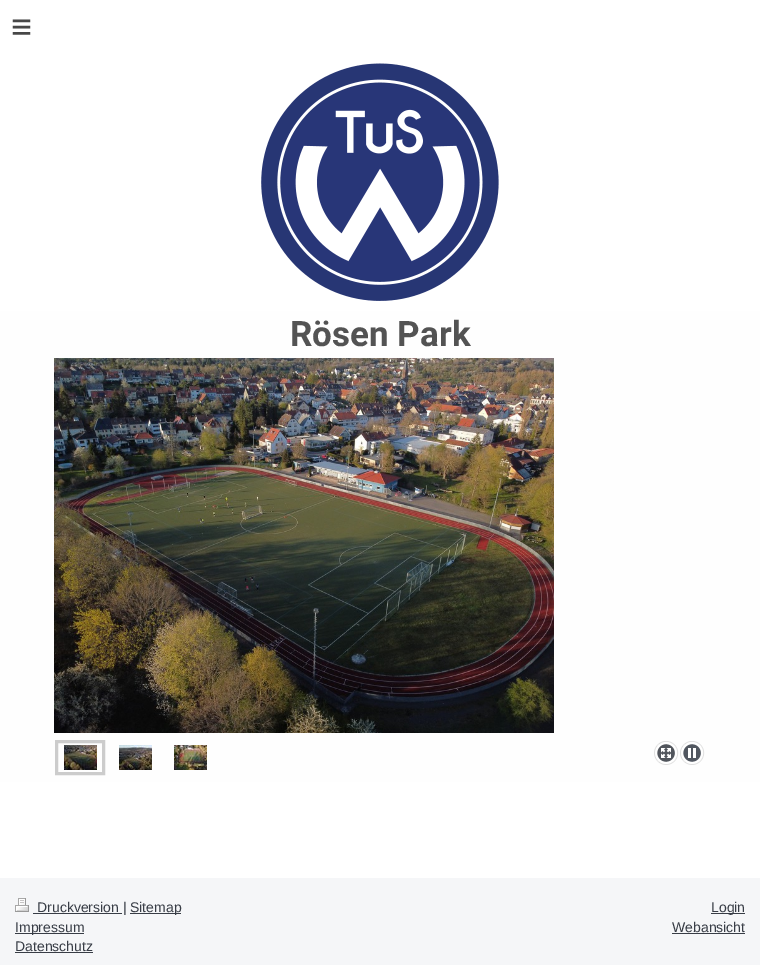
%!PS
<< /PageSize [760 965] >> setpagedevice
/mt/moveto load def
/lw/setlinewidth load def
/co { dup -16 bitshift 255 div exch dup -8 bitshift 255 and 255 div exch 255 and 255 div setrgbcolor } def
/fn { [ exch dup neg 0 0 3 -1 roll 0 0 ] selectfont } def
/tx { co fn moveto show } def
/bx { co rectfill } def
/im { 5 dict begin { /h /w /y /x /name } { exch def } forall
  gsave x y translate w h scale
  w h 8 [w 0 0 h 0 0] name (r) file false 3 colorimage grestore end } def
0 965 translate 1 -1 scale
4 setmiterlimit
0 0 760 965 16#F5F6F8 bx
0 0 760 311 16#FFFFFF bx
(media/1.raw) 261 63 238 238 im
0 311 760 471 16#FEFEFE bx
(media/2.raw) 54 358 500 375 im
16#CCCCCC co
3 lw
56.5 741.5 47 32 rectstroke
(media/3.raw) 64 745 33 25 im
(media/4.raw) 119 745 33 25 im
(media/5.raw) 174 745 33 25 im
(media/6.raw) 654 741 25 24 im
(media/7.raw) 680 741 25 24 im
0 782 760 96 16#FFFFFF bx
(media/8.raw) 15 898 14 14 im
33 913 89 1 16#383D46 bx
130 913 51 1 16#383D46 bx
15 933 69 1 16#383D46 bx
15 952 78 1 16#383D46 bx
711 913 34 1 16#383D46 bx
672 933 73 1 16#383D46 bx
/LiberationSans-Regular 36 fn
16#474747 co
11 39 mt 10 0 (≡) ashow
(Rösen Park) 290 346 /Roboto-Bold 35 16#535353 tx
(Druckversion |) 37 912 /LiberationSans-Regular 14 16#383D46 tx
(Sitemap) 130 912 /LiberationSans-Regular 14 16#383D46 tx
(Impressum) 15 932 /LiberationSans-Regular 14 16#383D46 tx
(Datenschutz) 15 951 /LiberationSans-Regular 14 16#383D46 tx
(Login) 711 912 /LiberationSans-Regular 14 16#383D46 tx
(Webansicht) 672 932 /LiberationSans-Regular 14 16#383D46 tx
showpage
